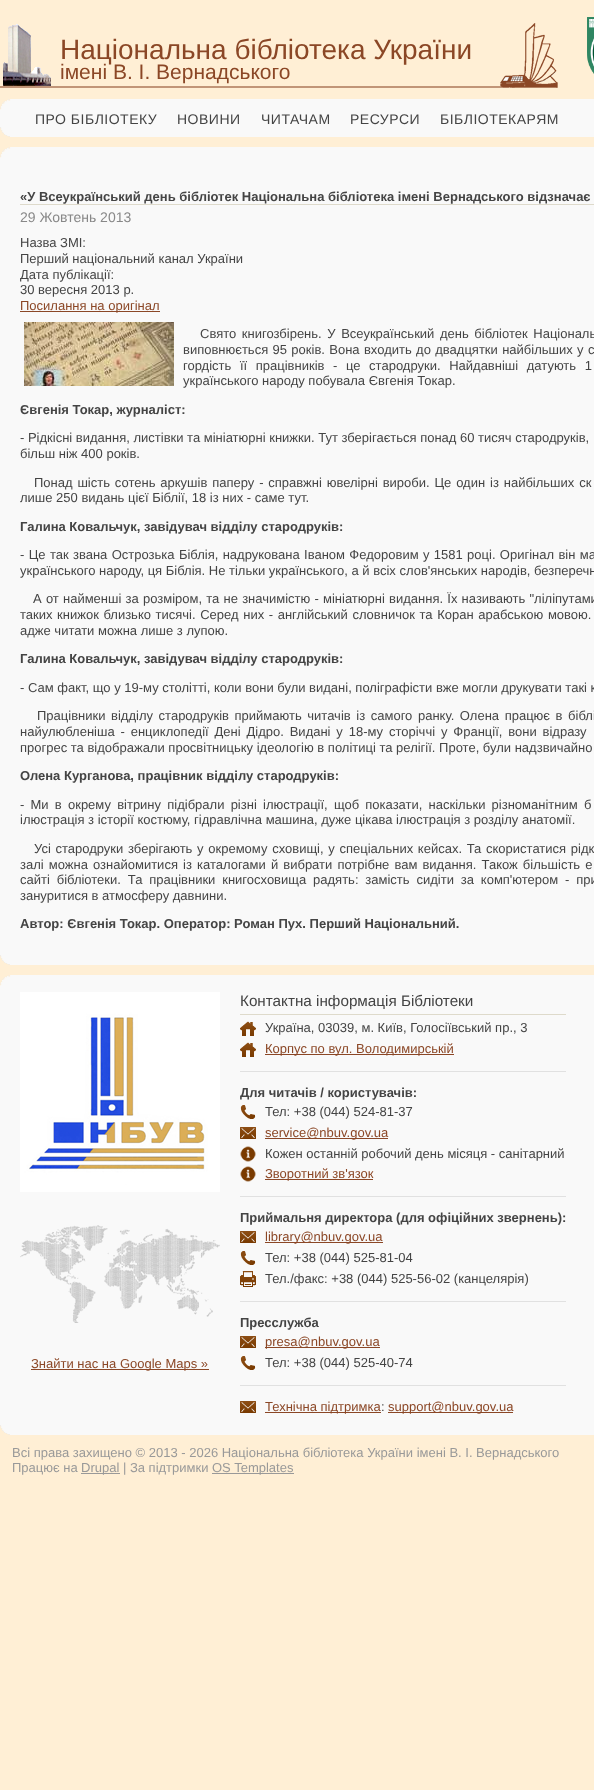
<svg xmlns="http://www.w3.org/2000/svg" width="594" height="1790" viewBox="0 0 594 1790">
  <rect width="100%" height="100%" fill="rgb(255,239,213)"/>
  <image x="0" y="23" width="558" height="65" href="pic1.png"/>
  <text x="60" y="59" font-family="Liberation Sans" font-size="28" fill="rgb(139,71,38)">Національна бібліотека України</text>
  <text x="60" y="79" font-family="Liberation Sans" font-size="21" fill="rgb(139,71,38)">імені В. І. Вернадського</text>
  <image x="587" y="17" width="7" height="57" href="pic2.png"/>
  <rect x="0" y="99" width="594" height="38" fill="rgb(249,249,249)"/>
  <image x="0" y="99" width="11" height="11" href="pic3.png"/>
  <image x="0" y="127" width="10" height="10" href="pic4.png"/>
  <g font-family="Liberation Sans" font-size="14" letter-spacing="0.5" fill="rgb(68,68,68)">
    <text x="35" y="124">ПРО БІБЛІОТЕКУ</text>
    <text x="177" y="124">НОВИНИ</text>
    <text x="261" y="124">ЧИТАЧАМ</text>
    <text x="350" y="124">РЕСУРСИ</text>
    <text x="440" y="124">БІБЛІОТЕКАРЯМ</text>
  </g>
  <rect x="0" y="147" width="594" height="818" fill="rgb(249,249,249)"/>
  <image x="0" y="147" width="11" height="11" href="pic3.png"/>
  <image x="0" y="955" width="10" height="10" href="pic4.png"/>
  <rect x="20" y="204" width="574" height="1" fill="rgb(222,218,203)"/>
  <text x="20" y="201" font-family="Liberation Sans" font-size="13" font-weight="bold" fill="rgb(68,68,68)">«У Всеукраїнський день бібліотек Національна бібліотека імені Вернадського відзначає</text>
  <text x="20" y="222" font-family="Liberation Sans" font-size="14" fill="rgb(136,136,136)">29 Жовтень 2013</text>
  <g font-family="Liberation Sans" font-size="13" fill="rgb(68,68,68)">
    <text>
      <tspan x="20" y="247">Назва ЗМІ:</tspan>
      <tspan x="20" y="263">Перший національний канал України</tspan>
      <tspan x="20" y="279">Дата публікації:</tspan>
      <tspan x="20" y="294">30 вересня 2013 р.</tspan>
    </text>
  </g>
  <rect x="20" y="311" width="140" height="1" fill="rgb(139,71,38)"/>
  <text x="20" y="310" font-family="Liberation Sans" font-size="13" fill="rgb(139,71,38)">Посилання на оригінал</text>
  <image x="24" y="322" width="150" height="64" href="pic5.png"/>
  <g font-family="Liberation Sans" font-size="13" fill="rgb(68,68,68)">
    <text x="200" y="338" word-spacing="2">Свято книгозбірень. У Всеукраїнський день бібліотек Національ</text>
    <text>
      <tspan x="183" y="354" word-spacing="0.75">виповнюється 95 років. Вона входить до двадцятки найбільших у с</tspan>
      <tspan x="183" y="370" word-spacing="5">гордість її працівників - це стародруки. Найдавніші датують 1</tspan>
      <tspan x="183" y="385">українського народу побувала Євгенія Токар.</tspan>
    </text>
  </g>
  <text x="20" y="414" font-family="Liberation Sans" font-size="13" font-weight="bold" fill="rgb(68,68,68)">Євгенія Токар, журналіст:</text>
  <g font-family="Liberation Sans" font-size="13" fill="rgb(68,68,68)">
    <text>
      <tspan x="20" y="442">- Рідкісні видання, листівки та мініатюрні книжки. Тут зберігається понад 60 тисяч стародруків,</tspan>
      <tspan x="20" y="458">більш ніж 400 років.</tspan>
    </text>
    <text x="34" y="487" word-spacing="1.25">Понад шість сотень аркушів паперу - справжні ювелірні вироби. Це один із найбільших ск</text>
    <text x="20" y="502">лише 250 видань цієї Біблії, 18 із них - саме тут.</text>
  </g>
  <text x="20" y="531" font-family="Liberation Sans" font-size="13" font-weight="bold" fill="rgb(68,68,68)">Галина Ковальчук, завідувач відділу стародруків:</text>
  <g font-family="Liberation Sans" font-size="13" fill="rgb(68,68,68)">
    <text>
      <tspan x="20" y="559" word-spacing="0.75">- Це так звана Острозька Біблія, надрукована Іваном Федоровим у 1581 році. Оригінал він ма</tspan>
      <tspan x="20" y="575">українського народу, ця Біблія. Не тільки українського, а й всіх слов'янських народів, безперечн</tspan>
    </text>
    <text x="33" y="603" word-spacing="0.6">А от найменші за розміром, та не значимістю - мініатюрні видання. Їх називають "ліліпутами</text>
    <text>
      <tspan x="20" y="619" word-spacing="1">таких книжок близько тисячі. Серед них - англійський словничок та Коран арабською мовою.</tspan>
      <tspan x="20" y="635">адже читати можна лише з лупою.</tspan>
    </text>
  </g>
  <text x="20" y="663" font-family="Liberation Sans" font-size="13" font-weight="bold" fill="rgb(68,68,68)">Галина Ковальчук, завідувач відділу стародруків:</text>
  <g font-family="Liberation Sans" font-size="13" fill="rgb(68,68,68)">
    <text x="20" y="692">- Сам факт, що у 19-му столітті, коли вони були видані, поліграфісти вже могли друкувати такі к</text>
    <text x="37" y="720" word-spacing="2">Працівники відділу стародруків приймають читачів із самого ранку. Олена працює в біблі</text>
    <text>
      <tspan x="20" y="736" word-spacing="2.25">найулюбленіша - енциклопедії Дені Дідро. Видані у 18-му сторіччі у Франції, вони відразу</tspan>
      <tspan x="20" y="752">прогрес та відображали просвітницьку ідеологію в політиці та релігії. Проте, були надзвичайно</tspan>
    </text>
  </g>
  <text x="20" y="780" font-family="Liberation Sans" font-size="13" font-weight="bold" fill="rgb(68,68,68)">Олена Курганова, працівник відділу стародруків:</text>
  <g font-family="Liberation Sans" font-size="13" fill="rgb(68,68,68)">
    <text>
      <tspan x="20" y="809" word-spacing="2.6">- Ми в окрему вітрину підібрали різні ілюстрації, щоб показати, наскільки різноманітним б</tspan>
      <tspan x="20" y="824">ілюстрація з історії костюму, гідравлічна машина, дуже цікава ілюстрація з розділу анатомії.</tspan>
    </text>
    <text x="34" y="853" word-spacing="1.1">Усі стародруки зберігають у окремому сховищі, у спеціальних кейсах. Та скористатися рідк</text>
    <text>
      <tspan x="20" y="869" word-spacing="1.5">залі можна ознайомитися із каталогами й вибрати потрібне вам видання. Також більшість е</tspan>
      <tspan x="20" y="884" word-spacing="3.25">сайті бібліотеки. Та працівники книгосховища радять: замість сидіти за комп'ютером - при</tspan>
      <tspan x="20" y="900">зануритися в атмосферу давнини.</tspan>
    </text>
  </g>
  <text x="20" y="928" font-family="Liberation Sans" font-size="13" font-weight="bold" fill="rgb(68,68,68)">Автор: Євгенія Токар. Оператор: Роман Пух. Перший Національний.</text>
  <rect x="0" y="975" width="594" height="460" fill="rgb(249,249,249)"/>
  <image x="0" y="975" width="11" height="11" href="pic3.png"/>
  <image x="0" y="1425" width="10" height="10" href="pic4.png"/>
  <image x="20" y="992" width="200" height="200" href="pic6.png"/>
  <image x="20" y="1225" width="200" height="98" href="pic7.png"/>
  <rect x="31" y="1369" width="178" height="1" fill="rgb(139,71,38)"/>
  <text x="31" y="1368" font-family="Liberation Sans" font-size="13" fill="rgb(139,71,38)">Знайти нас на Google Maps »</text>
  <rect x="240" y="1014" width="326" height="1" fill="rgb(222,218,203)"/>
  <text x="240" y="1006" font-family="Liberation Sans" font-size="15.25" fill="rgb(68,68,68)">Контактна інформація Бібліотеки</text>
  <image x="240" y="1021" width="16" height="15" href="pic8.png"/>
  <text x="265" y="1032" font-family="Liberation Sans" font-size="13" fill="rgb(68,68,68)">Україна, 03039, м. Київ, Голосіївський пр., 3</text>
  <image x="240" y="1042" width="16" height="15" href="pic8.png"/>
  <rect x="265" y="1054" width="189" height="1" fill="rgb(139,71,38)"/>
  <text x="265" y="1053" font-family="Liberation Sans" font-size="13" fill="rgb(139,71,38)">Корпус по вул. Володимирській</text>
  <rect x="240" y="1071" width="326" height="1" fill="rgb(225,225,225)"/>
  <text x="240" y="1097" font-family="Liberation Sans" font-size="13" font-weight="bold" fill="rgb(68,68,68)">Для читачів / користувачів:</text>
  <image x="240" y="1105" width="16" height="14" href="pic9.png"/>
  <text x="265" y="1116" font-family="Liberation Sans" font-size="13" fill="rgb(68,68,68)">Тел: +38 (044) 524-81-37</text>
  <image x="240" y="1127" width="16" height="12" href="pic10.png"/>
  <rect x="265" y="1138" width="123" height="1" fill="rgb(139,71,38)"/>
  <text x="265" y="1137" font-family="Liberation Sans" font-size="13" fill="rgb(139,71,38)">service@nbuv.gov.ua</text>
  <image x="240" y="1146" width="16" height="16" href="pic11.png"/>
  <text x="265" y="1158" font-family="Liberation Sans" font-size="13" fill="rgb(68,68,68)">Кожен останній робочий день місяця - санітарний</text>
  <image x="240" y="1166" width="16" height="16" href="pic11.png"/>
  <rect x="265" y="1179" width="108" height="1" fill="rgb(139,71,38)"/>
  <text x="265" y="1178" font-family="Liberation Sans" font-size="13" fill="rgb(139,71,38)">Зворотний зв'язок</text>
  <rect x="240" y="1196" width="326" height="1" fill="rgb(225,225,225)"/>
  <text x="240" y="1222" font-family="Liberation Sans" font-size="13" font-weight="bold" fill="rgb(68,68,68)">Приймальня директора (для офіційних звернень):</text>
  <image x="240" y="1231" width="16" height="12" href="pic10.png"/>
  <rect x="265" y="1242" width="118" height="1" fill="rgb(139,71,38)"/>
  <text x="265" y="1241" font-family="Liberation Sans" font-size="13" fill="rgb(139,71,38)">library@nbuv.gov.ua</text>
  <image x="240" y="1251" width="16" height="14" href="pic9.png"/>
  <text x="265" y="1262" font-family="Liberation Sans" font-size="13" fill="rgb(68,68,68)">Тел: +38 (044) 525-81-04</text>
  <image x="240" y="1271" width="16" height="16" href="pic12.png"/>
  <text x="265" y="1283" font-family="Liberation Sans" font-size="13" fill="rgb(68,68,68)">Тел./факс: +38 (044) 525-56-02 (канцелярія)</text>
  <rect x="240" y="1301" width="326" height="1" fill="rgb(225,225,225)"/>
  <text x="240" y="1327" font-family="Liberation Sans" font-size="13" font-weight="bold" fill="rgb(68,68,68)">Пресслужба</text>
  <image x="240" y="1336" width="16" height="12" href="pic10.png"/>
  <rect x="265" y="1347" width="115" height="1" fill="rgb(139,71,38)"/>
  <text x="265" y="1346" font-family="Liberation Sans" font-size="13" fill="rgb(139,71,38)">presa@nbuv.gov.ua</text>
  <image x="240" y="1356" width="16" height="14" href="pic9.png"/>
  <text x="265" y="1367" font-family="Liberation Sans" font-size="13" fill="rgb(68,68,68)">Тел: +38 (044) 525-40-74</text>
  <rect x="240" y="1385" width="326" height="1" fill="rgb(225,225,225)"/>
  <image x="240" y="1401" width="16" height="12" href="pic10.png"/>
  <rect x="265" y="1412" width="116" height="1" fill="rgb(139,71,38)"/>
  <text x="265" y="1411" font-family="Liberation Sans" font-size="13" fill="rgb(139,71,38)">Технічна підтримка</text>
  <text x="381" y="1411" font-family="Liberation Sans" font-size="13" fill="rgb(68,68,68)">:</text>
  <rect x="388" y="1412" width="125" height="1" fill="rgb(139,71,38)"/>
  <text x="388" y="1411" font-family="Liberation Sans" font-size="13" fill="rgb(139,71,38)">support@nbuv.gov.ua</text>
  <g font-family="Liberation Sans" font-size="13" fill="rgb(153,153,153)">
    <text>
      <tspan x="12" y="1457">Всі права захищено © 2013 - 2026 Національна бібліотека України імені В. І. Вернадського</tspan>
      <tspan x="12" y="1472">Працює на</tspan>
    </text>
  </g>
  <rect x="81" y="1473" width="39" height="1" fill="rgb(153,153,153)"/>
  <text x="81" y="1472" font-family="Liberation Sans" font-size="13" fill="rgb(153,153,153)">Drupal | За підтримки</text>
  <rect x="212" y="1473" width="82" height="1" fill="rgb(153,153,153)"/>
  <text x="212" y="1472" font-family="Liberation Sans" font-size="13" fill="rgb(153,153,153)">OS Templates</text>
</svg>
